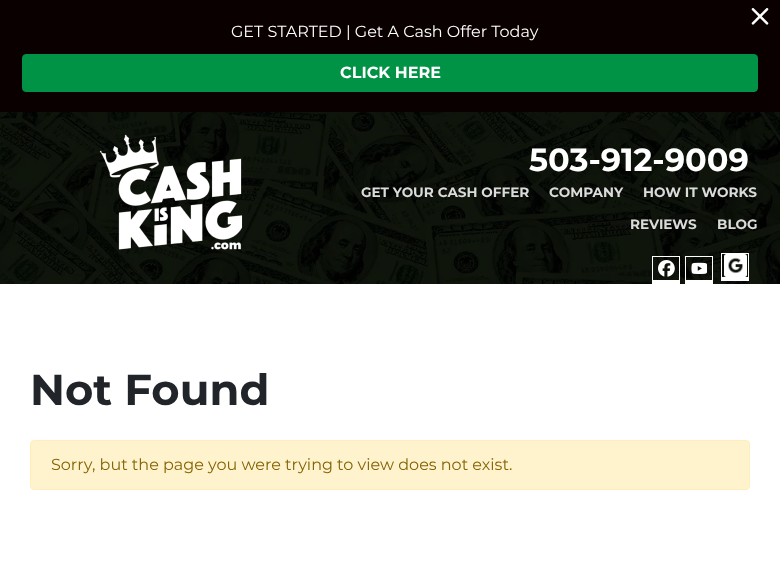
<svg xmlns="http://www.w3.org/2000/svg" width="780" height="582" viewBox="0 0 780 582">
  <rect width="100%" height="100%" fill="rgb(255,255,255)"/>
  <rect x="0" y="0" width="780" height="112" fill="rgb(10,0,0)"/>
  <image x="751" y="8" width="18" height="17" href="pic1.png"/>
  <text x="231" y="37" font-family="Montserrat" font-size="16" fill="rgb(255,255,255)">GET STARTED | Get A Cash Offer Today</text>
  <rect x="22.5" y="54.5" width="735" height="37" rx="3.5" fill="rgb(0,147,69)" stroke="rgb(0,147,69)"/>
  <text x="340" y="78" font-family="Montserrat" font-size="16" font-weight="bold" fill="rgb(255,255,255)">CLICK HERE</text>
  <image x="0" y="112" width="780" height="172" href="pic2.png"/>
  <image x="99" y="134" width="144" height="116" href="pic3.png"/>
  <text x="529" y="171" font-family="Montserrat" font-size="32" font-weight="bold" fill="rgb(255,255,255)">503-912-9009</text>
  <g font-family="Montserrat" font-size="13.6" font-weight="bold" fill="rgb(218,219,218)">
    <text x="361" y="197">GET YOUR CASH OFFER</text>
    <text x="549" y="197">COMPANY</text>
    <text x="643" y="197">HOW IT WORKS</text>
    <text x="630" y="229">REVIEWS</text>
    <text x="717" y="229">BLOG</text>
  </g>
  <rect x="652" y="256" width="28" height="1" fill="rgb(255,255,255)"/>
  <rect x="679" y="256" width="1" height="28" fill="rgb(255,255,255)"/>
  <rect x="652" y="280" width="28" height="4" fill="rgb(255,255,255)"/>
  <rect x="652" y="256" width="1" height="28" fill="rgb(255,255,255)"/>
  <image x="658" y="260" width="17" height="17" href="pic4.png"/>
  <rect x="685" y="256" width="28" height="1" fill="rgb(255,255,255)"/>
  <rect x="712" y="256" width="1" height="28" fill="rgb(255,255,255)"/>
  <rect x="685" y="280" width="28" height="4" fill="rgb(255,255,255)"/>
  <rect x="685" y="256" width="1" height="28" fill="rgb(255,255,255)"/>
  <image x="691" y="262" width="16" height="12" href="pic5.png"/>
  <rect x="721" y="253" width="28" height="1" fill="rgb(255,255,255)"/>
  <rect x="748" y="253" width="1" height="28" fill="rgb(255,255,255)"/>
  <rect x="721" y="277" width="28" height="4" fill="rgb(255,255,255)"/>
  <rect x="721" y="253" width="1" height="28" fill="rgb(255,255,255)"/>
  <image x="724" y="254" width="23" height="23" href="pic6.png"/>
  <text x="30" y="405" font-family="Montserrat" font-size="43.25" font-weight="bold" fill="rgb(33,37,41)">Not Found</text>
  <rect x="30.5" y="440.5" width="719" height="49" rx="3.5" fill="rgb(255,243,205)" stroke="rgb(255,238,186)"/>
  <text x="51" y="470" font-family="Montserrat" font-size="16" fill="rgb(133,100,4)">Sorry, but the page you were trying to view does not exist.</text>
</svg>
